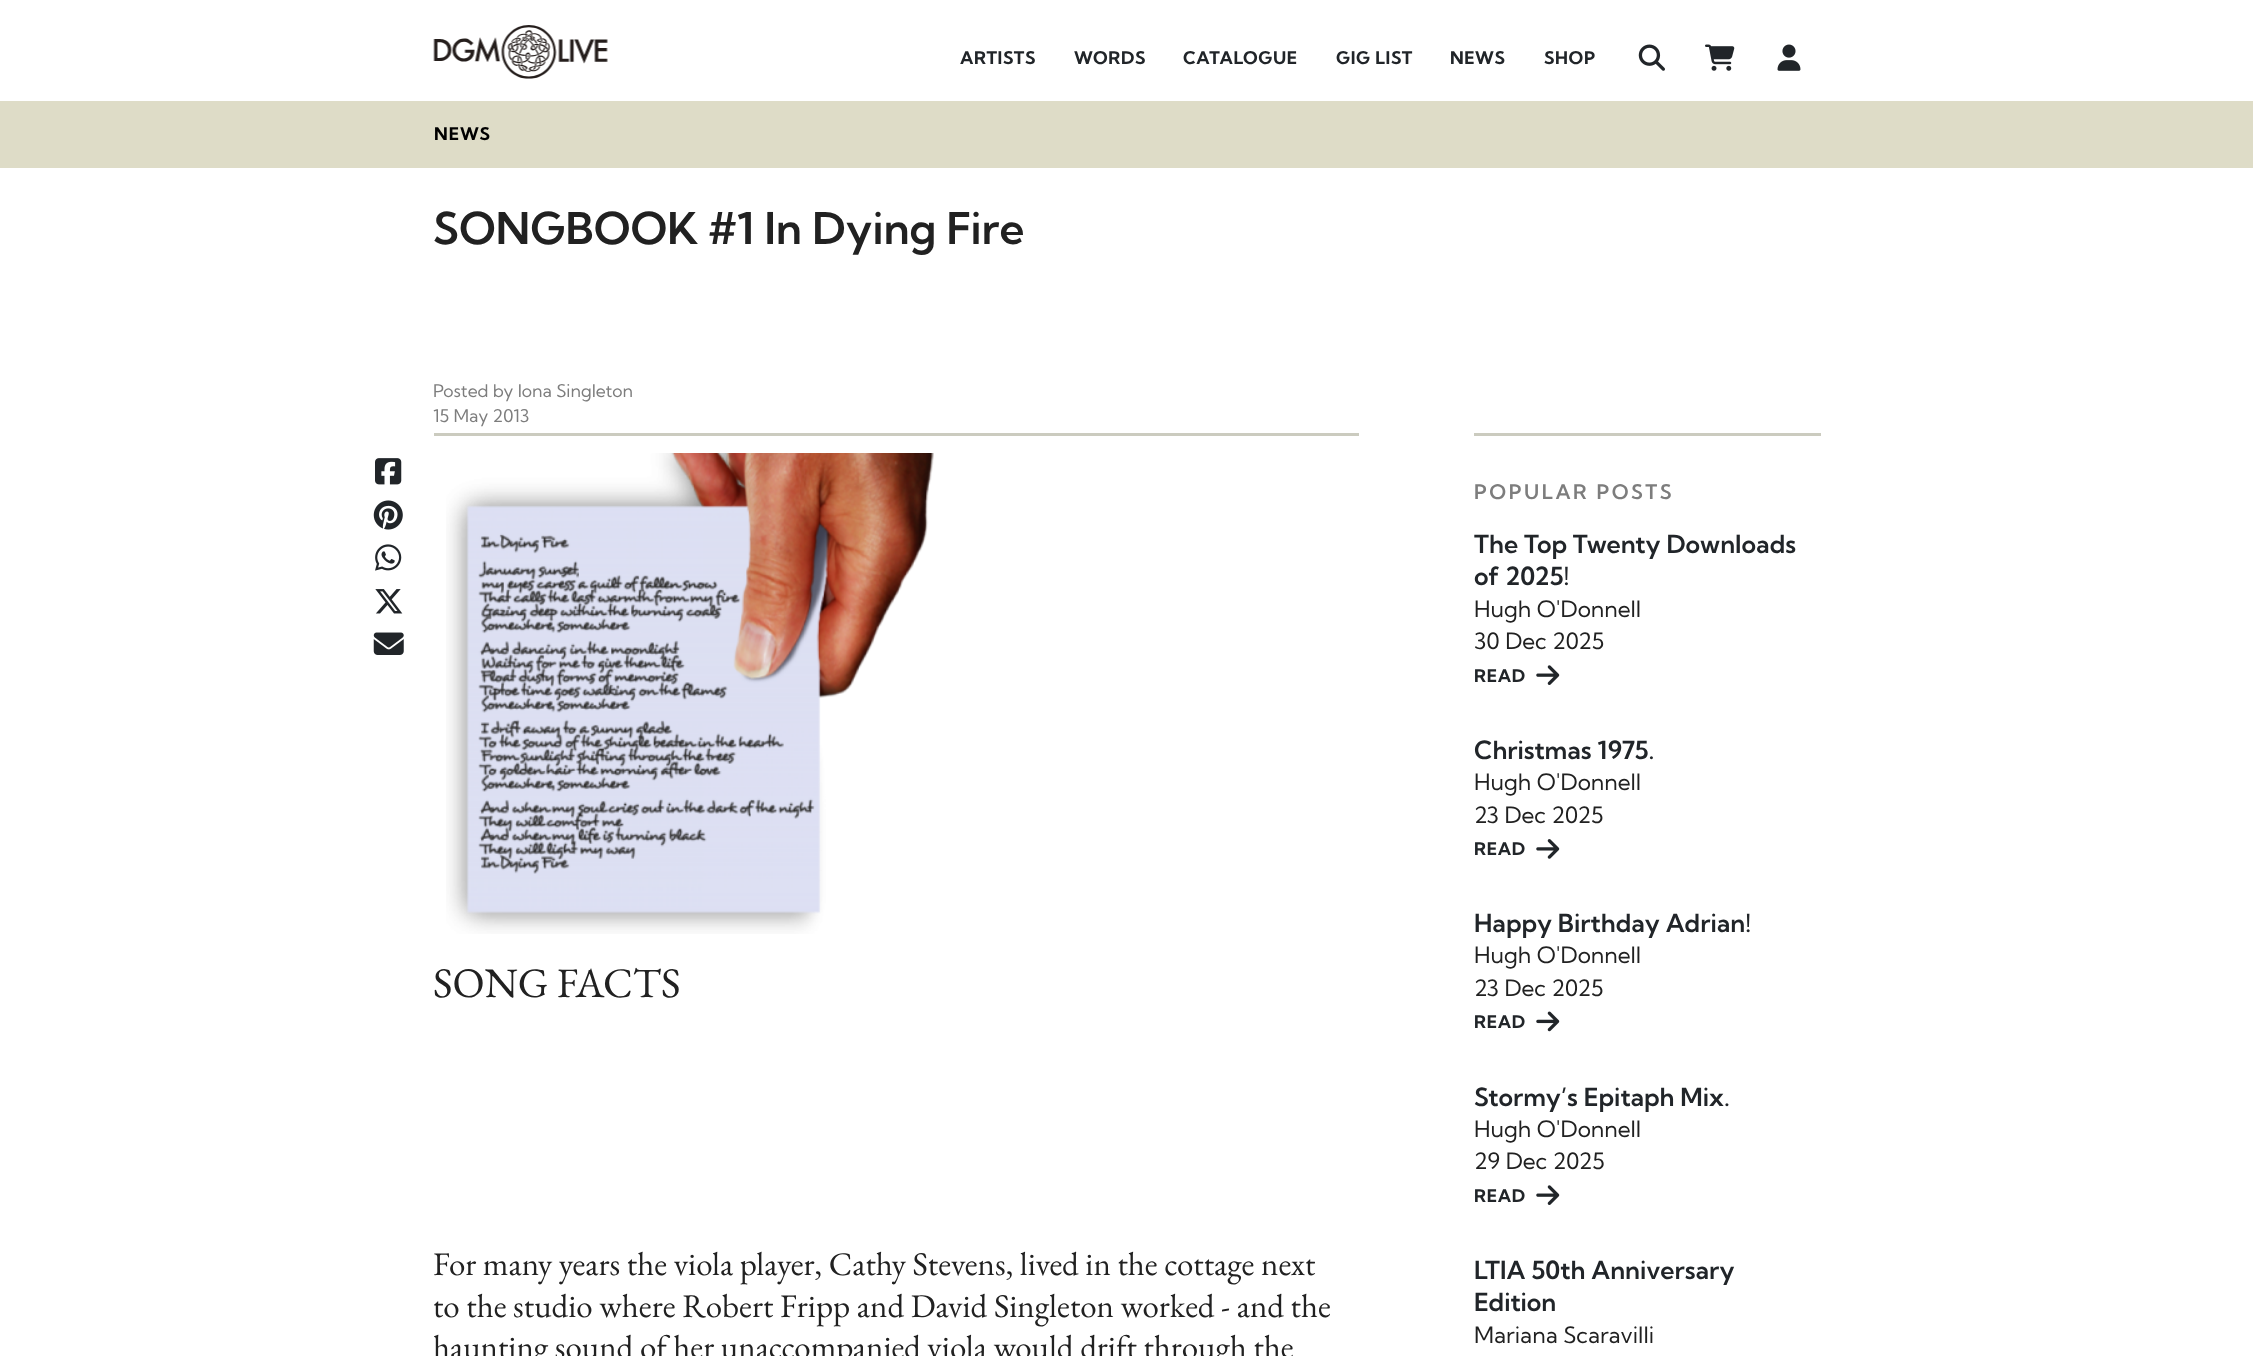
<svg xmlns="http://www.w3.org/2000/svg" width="2253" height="1356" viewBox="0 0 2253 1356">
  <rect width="100%" height="100%" fill="rgb(255,255,255)"/>
  <image x="433" y="25" width="175" height="54" href="pic1.png"/>
  <g font-family="Kumbh Sans" font-size="17.5" font-weight="bold" letter-spacing="0.6" fill="rgb(33,37,41)">
    <text x="960" y="64">ARTISTS</text>
    <text x="1074" y="64">WORDS</text>
    <text x="1183" y="64">CATALOGUE</text>
    <text x="1336" y="64">GIG LIST</text>
    <text x="1450" y="64">NEWS</text>
    <text x="1544" y="64">SHOP</text>
  </g>
  <image x="1638" y="44" width="27" height="27" href="pic2.png"/>
  <image x="1705" y="44" width="30" height="27" href="pic3.png"/>
  <image x="1777" y="44" width="24" height="27" href="pic4.png"/>
  <rect x="0" y="101" width="2253" height="67" fill="rgb(222,220,199)"/>
  <text x="434" y="140" font-family="Kumbh Sans" font-size="17.5" font-weight="bold" letter-spacing="1" fill="rgb(0,0,0)">NEWS</text>
  <text x="433" y="244" font-family="Kumbh Sans" font-size="43.75" font-weight="600" fill="rgb(33,33,33)">SONGBOOK #1 In Dying Fire</text>
  <g font-family="Kumbh Sans" font-size="17.5" fill="rgb(125,125,125)">
    <text>
      <tspan x="433" y="397">Posted by Iona Singleton</tspan>
      <tspan x="433" y="422">15 May 2013</tspan>
    </text>
  </g>
  <rect x="434" y="433" width="925" height="3" fill="rgb(203,203,191)"/>
  <image x="375" y="458" width="27" height="27" href="pic5.png"/>
  <image x="373" y="500" width="30" height="30" href="pic6.png"/>
  <image x="375" y="544" width="27" height="27" href="pic7.png"/>
  <image x="375" y="589" width="28" height="25" href="pic8.png"/>
  <image x="373" y="632" width="31" height="23" href="pic9.png"/>
  <image x="446" y="453" width="488" height="481" href="pic10.png"/>
  <text x="433" y="997" font-family="EB Garamond" font-size="42" fill="rgb(33,33,33)">SONG FACTS</text>
  <g font-family="EB Garamond" font-size="33" fill="rgb(33,33,33)">
    <text>
      <tspan x="433" y="1275">For many years the viola player, Cathy Stevens, lived in the cottage next</tspan>
      <tspan x="433" y="1317">to the studio where Robert Fripp and David Singleton worked - and the</tspan>
      <tspan x="433" y="1358">haunting sound of her unaccompanied viola would drift through the</tspan>
    </text>
  </g>
  <rect x="1474" y="433" width="347" height="3" fill="rgb(203,203,191)"/>
  <text x="1474" y="499" font-family="Kumbh Sans" font-size="20" font-weight="600" letter-spacing="2.5" fill="rgb(125,125,125)">POPULAR POSTS</text>
  <g font-family="Kumbh Sans" font-size="25" font-weight="600" fill="rgb(33,37,41)">
    <text>
      <tspan x="1474" y="553">The Top Twenty Downloads</tspan>
      <tspan x="1474" y="585">of 2025!</tspan>
    </text>
  </g>
  <g font-family="Kumbh Sans" font-size="22.5" fill="rgb(33,33,33)">
    <text>
      <tspan x="1474" y="617">Hugh O'Donnell</tspan>
      <tspan x="1474" y="649">30 Dec 2025</tspan>
    </text>
  </g>
  <text x="1474" y="682" font-family="Kumbh Sans" font-size="17.5" font-weight="bold" letter-spacing="0.6" fill="rgb(33,37,41)">READ</text>
  <image x="1536" y="665" width="24" height="20" href="pic11.png"/>
  <text x="1474" y="759" font-family="Kumbh Sans" font-size="25" font-weight="600" fill="rgb(33,37,41)">Christmas 1975.</text>
  <g font-family="Kumbh Sans" font-size="22.5" fill="rgb(33,33,33)">
    <text>
      <tspan x="1474" y="790">Hugh O'Donnell</tspan>
      <tspan x="1474" y="823">23 Dec 2025</tspan>
    </text>
  </g>
  <text x="1474" y="855" font-family="Kumbh Sans" font-size="17.5" font-weight="bold" letter-spacing="0.6" fill="rgb(33,37,41)">READ</text>
  <image x="1536" y="839" width="24" height="20" href="pic12.png"/>
  <text x="1474" y="932" font-family="Kumbh Sans" font-size="25" font-weight="600" fill="rgb(33,37,41)">Happy Birthday Adrian!</text>
  <g font-family="Kumbh Sans" font-size="22.5" fill="rgb(33,33,33)">
    <text>
      <tspan x="1474" y="963">Hugh O'Donnell</tspan>
      <tspan x="1474" y="996">23 Dec 2025</tspan>
    </text>
  </g>
  <text x="1474" y="1028" font-family="Kumbh Sans" font-size="17.5" font-weight="bold" letter-spacing="0.6" fill="rgb(33,37,41)">READ</text>
  <image x="1536" y="1011" width="24" height="21" href="pic13.png"/>
  <text x="1474" y="1106" font-family="Kumbh Sans" font-size="25" font-weight="600" fill="rgb(33,37,41)">Stormy’s Epitaph Mix.</text>
  <g font-family="Kumbh Sans" font-size="22.5" fill="rgb(33,33,33)">
    <text>
      <tspan x="1474" y="1137">Hugh O'Donnell</tspan>
      <tspan x="1474" y="1169">29 Dec 2025</tspan>
    </text>
  </g>
  <text x="1474" y="1202" font-family="Kumbh Sans" font-size="17.5" font-weight="bold" letter-spacing="0.6" fill="rgb(33,37,41)">READ</text>
  <image x="1536" y="1185" width="24" height="20" href="pic11.png"/>
  <g font-family="Kumbh Sans" font-size="25" font-weight="600" fill="rgb(33,37,41)">
    <text>
      <tspan x="1474" y="1279">LTIA 50th Anniversary</tspan>
      <tspan x="1474" y="1311">Edition</tspan>
    </text>
  </g>
  <text x="1474" y="1343" font-family="Kumbh Sans" font-size="22.5" fill="rgb(33,33,33)">Mariana Scaravilli</text>
</svg>
